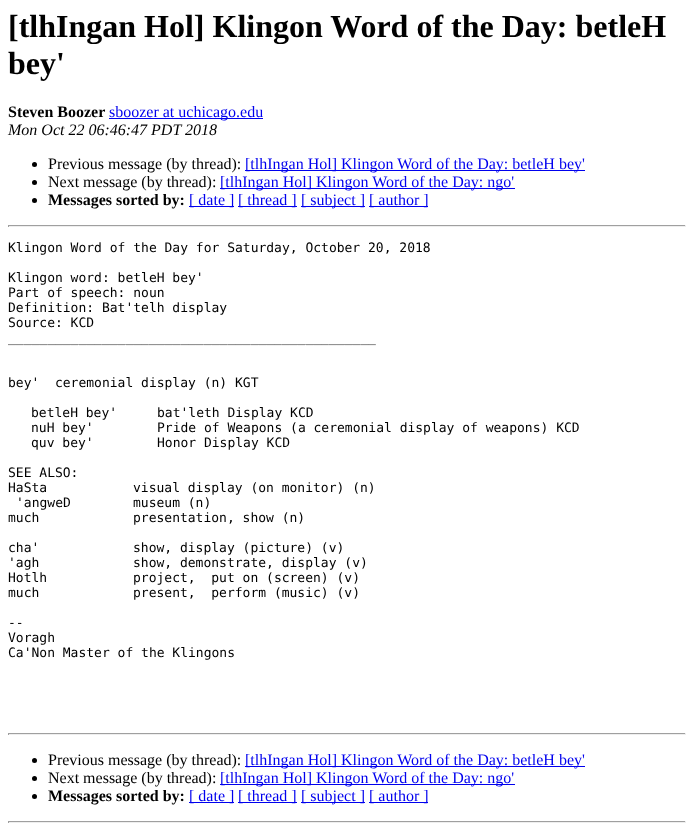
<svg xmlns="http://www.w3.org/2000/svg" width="694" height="832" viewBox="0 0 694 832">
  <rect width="100%" height="100%" fill="rgb(255,255,255)"/>
  <g font-family="Liberation Serif" font-size="32" font-weight="bold" fill="rgb(0,0,0)">
    <text>
      <tspan x="8" y="37">[tlhIngan Hol] Klingon Word of the Day: betleH</tspan>
      <tspan x="8" y="74">bey'</tspan>
    </text>
  </g>
  <text x="8" y="117" font-family="Liberation Serif" font-size="16" font-weight="bold" fill="rgb(0,0,0)">Steven Boozer</text>
  <rect x="109" y="118" width="154" height="1" fill="rgb(0,0,238)"/>
  <text x="109" y="117" font-family="Liberation Serif" font-size="16" fill="rgb(0,0,238)">sboozer at uchicago.edu</text>
  <text x="8" y="135" font-family="Liberation Serif" font-size="16" font-style="italic" fill="rgb(0,0,0)">Mon Oct 22 06:46:47 PDT 2018</text>
  <circle cx="34.5" cy="164.5" r="2.5" fill="rgb(0,0,0)"/>
  <text x="48" y="169" font-family="Liberation Serif" font-size="16" fill="rgb(0,0,0)">Previous message (by thread):</text>
  <rect x="245" y="170" width="340" height="1" fill="rgb(0,0,238)"/>
  <text x="245" y="169" font-family="Liberation Serif" font-size="16" fill="rgb(0,0,238)">[tlhIngan Hol] Klingon Word of the Day: betleH bey'</text>
  <circle cx="34.5" cy="182.5" r="2.5" fill="rgb(0,0,0)"/>
  <text x="48" y="187" font-family="Liberation Serif" font-size="16" fill="rgb(0,0,0)">Next message (by thread):</text>
  <rect x="220" y="188" width="295" height="1" fill="rgb(0,0,238)"/>
  <text x="220" y="187" font-family="Liberation Serif" font-size="16" fill="rgb(0,0,238)">[tlhIngan Hol] Klingon Word of the Day: ngo'</text>
  <circle cx="34.5" cy="200.5" r="2.5" fill="rgb(0,0,0)"/>
  <text x="48" y="205" font-family="Liberation Serif" font-size="16" font-weight="bold" fill="rgb(0,0,0)">Messages sorted by:</text>
  <rect x="189" y="206" width="45" height="1" fill="rgb(0,0,238)"/>
  <text x="189" y="205" font-family="Liberation Serif" font-size="16" fill="rgb(0,0,238)">[ date ]</text>
  <rect x="238" y="206" width="59" height="1" fill="rgb(0,0,238)"/>
  <text x="238" y="205" font-family="Liberation Serif" font-size="16" fill="rgb(0,0,238)">[ thread ]</text>
  <rect x="301" y="206" width="64" height="1" fill="rgb(0,0,238)"/>
  <text x="301" y="205" font-family="Liberation Serif" font-size="16" fill="rgb(0,0,238)">[ subject ]</text>
  <rect x="369" y="206" width="59" height="1" fill="rgb(0,0,238)"/>
  <text x="369" y="205" font-family="Liberation Serif" font-size="16" fill="rgb(0,0,238)">[ author ]</text>
  <rect x="8" y="225" width="678" height="1" fill="rgb(159,159,159)"/>
  <rect x="685" y="225" width="1" height="2" fill="rgb(238,238,238)"/>
  <rect x="8" y="226" width="678" height="1" fill="rgb(238,238,238)"/>
  <rect x="8" y="225" width="1" height="2" fill="rgb(159,159,159)"/>
  <g font-family="DejaVu Sans Mono" font-size="13" fill="rgb(0,0,0)">
    <text x="8" y="252">Klingon Word of the Day for Saturday, October 20, 2018</text>
    <text>
      <tspan x="8" y="282">Klingon word: betleH bey'</tspan>
      <tspan x="8" y="297">Part of speech: noun</tspan>
      <tspan x="8" y="312">Definition: Bat'telh display</tspan>
      <tspan x="8" y="327">Source: KCD</tspan>
      <tspan x="8" y="342">_______________________________________________</tspan>
    </text>
    <text x="8" y="387" xml:space="preserve">bey'  ceremonial display (n) KGT</text>
    <text x="31" y="417">betleH bey'</text>
    <text x="157" y="417">bat'leth Display KCD</text>
    <text x="31" y="432">nuH bey'</text>
    <text x="157" y="432">Pride of Weapons (a ceremonial display of weapons) KCD</text>
    <text x="31" y="447">quv bey'</text>
    <text x="157" y="447">Honor Display KCD</text>
    <text>
      <tspan x="8" y="477">SEE ALSO:</tspan>
      <tspan x="8" y="492">HaSta</tspan>
    </text>
    <text x="133" y="492">visual display (on monitor) (n)</text>
    <text x="16" y="507">'angweD</text>
    <text x="133" y="507">museum (n)</text>
    <text x="8" y="522">much</text>
    <text x="133" y="522">presentation, show (n)</text>
    <text x="8" y="552">cha'</text>
    <text x="133" y="552">show, display (picture) (v)</text>
    <text x="8" y="567">'agh</text>
    <text x="133" y="567">show, demonstrate, display (v)</text>
    <text x="8" y="582">Hotlh</text>
    <text x="133" y="582" xml:space="preserve">project,  put on (screen) (v)</text>
    <text x="8" y="597">much</text>
    <text x="133" y="597" xml:space="preserve">present,  perform (music) (v)</text>
    <text>
      <tspan x="8" y="627">--</tspan>
      <tspan x="8" y="642">Voragh</tspan>
      <tspan x="8" y="657">Ca'Non Master of the Klingons</tspan>
    </text>
  </g>
  <rect x="8" y="733" width="678" height="1" fill="rgb(159,159,159)"/>
  <rect x="685" y="733" width="1" height="2" fill="rgb(238,238,238)"/>
  <rect x="8" y="734" width="678" height="1" fill="rgb(238,238,238)"/>
  <rect x="8" y="733" width="1" height="2" fill="rgb(159,159,159)"/>
  <circle cx="34.5" cy="760.5" r="2.5" fill="rgb(0,0,0)"/>
  <text x="48" y="765" font-family="Liberation Serif" font-size="16" fill="rgb(0,0,0)">Previous message (by thread):</text>
  <rect x="245" y="766" width="340" height="1" fill="rgb(0,0,238)"/>
  <text x="245" y="765" font-family="Liberation Serif" font-size="16" fill="rgb(0,0,238)">[tlhIngan Hol] Klingon Word of the Day: betleH bey'</text>
  <circle cx="34.5" cy="778.5" r="2.5" fill="rgb(0,0,0)"/>
  <text x="48" y="783" font-family="Liberation Serif" font-size="16" fill="rgb(0,0,0)">Next message (by thread):</text>
  <rect x="220" y="784" width="295" height="1" fill="rgb(0,0,238)"/>
  <text x="220" y="783" font-family="Liberation Serif" font-size="16" fill="rgb(0,0,238)">[tlhIngan Hol] Klingon Word of the Day: ngo'</text>
  <circle cx="34.5" cy="796.5" r="2.5" fill="rgb(0,0,0)"/>
  <text x="48" y="801" font-family="Liberation Serif" font-size="16" font-weight="bold" fill="rgb(0,0,0)">Messages sorted by:</text>
  <rect x="189" y="802" width="45" height="1" fill="rgb(0,0,238)"/>
  <text x="189" y="801" font-family="Liberation Serif" font-size="16" fill="rgb(0,0,238)">[ date ]</text>
  <rect x="238" y="802" width="59" height="1" fill="rgb(0,0,238)"/>
  <text x="238" y="801" font-family="Liberation Serif" font-size="16" fill="rgb(0,0,238)">[ thread ]</text>
  <rect x="301" y="802" width="64" height="1" fill="rgb(0,0,238)"/>
  <text x="301" y="801" font-family="Liberation Serif" font-size="16" fill="rgb(0,0,238)">[ subject ]</text>
  <rect x="369" y="802" width="59" height="1" fill="rgb(0,0,238)"/>
  <text x="369" y="801" font-family="Liberation Serif" font-size="16" fill="rgb(0,0,238)">[ author ]</text>
  <rect x="8" y="821" width="678" height="1" fill="rgb(159,159,159)"/>
  <rect x="685" y="821" width="1" height="2" fill="rgb(238,238,238)"/>
  <rect x="8" y="822" width="678" height="1" fill="rgb(238,238,238)"/>
  <rect x="8" y="821" width="1" height="2" fill="rgb(159,159,159)"/>
</svg>
